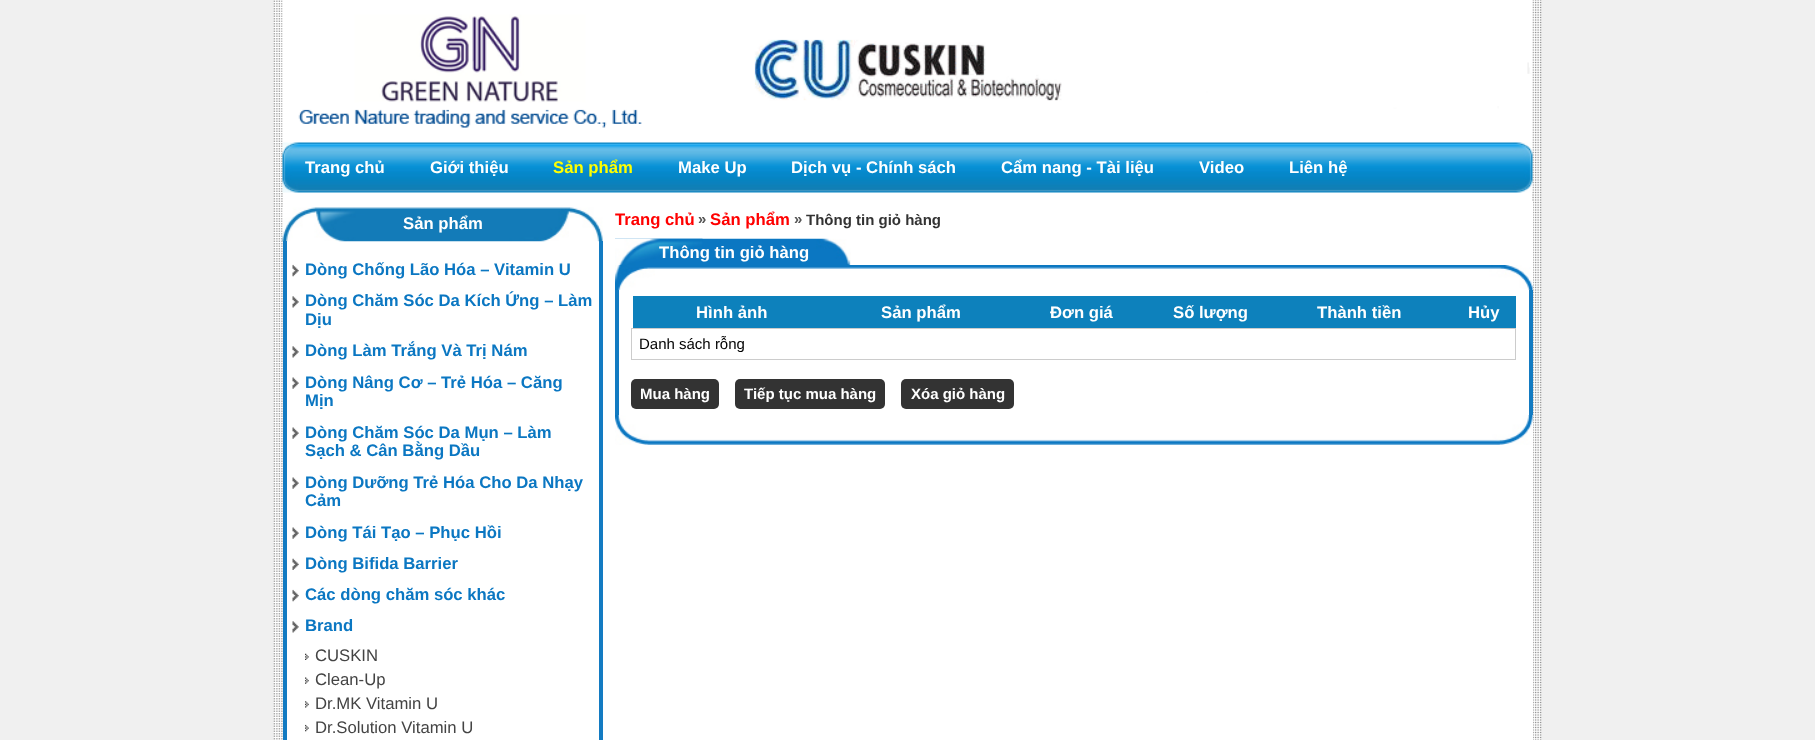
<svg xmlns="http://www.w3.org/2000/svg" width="1815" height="740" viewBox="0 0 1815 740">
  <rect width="100%" height="100%" fill="rgb(240,240,240)"/>
  <image x="273" y="0" width="1269" height="740" href="pic1.png"/>
  <image x="282" y="0" width="1251" height="143" href="pic2.png"/>
  <image x="282" y="142" width="1251" height="51" href="pic3.png"/>
  <g font-family="Liberation Sans" font-size="16.7" font-weight="bold" fill="rgb(255,255,255)">
    <text x="305" y="173">Trang chủ</text>
    <text x="430" y="173">Giới thiệu</text>
  </g>
  <text x="553" y="173" font-family="Liberation Sans" font-size="16.7" font-weight="bold" fill="rgb(255,255,0)">Sản phẩm</text>
  <g font-family="Liberation Sans" font-size="16.7" font-weight="bold" fill="rgb(255,255,255)">
    <text x="678" y="173">Make Up</text>
    <text x="791" y="173">Dịch vụ - Chính sách</text>
    <text x="1001" y="173">Cẩm nang - Tài liệu</text>
    <text x="1199" y="173">Video</text>
    <text x="1289" y="173">Liên hệ</text>
  </g>
  <rect x="1532" y="201" width="1" height="539" fill="rgb(255,255,255)"/>
  <image x="282" y="207" width="321" height="35" href="pic4.png"/>
  <text x="403" y="229" font-family="Liberation Sans" font-size="16.7" font-weight="bold" fill="rgb(255,255,255)">Sản phẩm</text>
  <rect x="599" y="241" width="4" height="499" fill="rgb(19,123,194)"/>
  <rect x="283" y="241" width="4" height="499" fill="rgb(19,123,194)"/>
  <image x="292" y="264" width="7" height="13" href="pic5.png"/>
  <text x="305" y="275" font-family="Liberation Sans" font-size="16.7" font-weight="bold" fill="rgb(11,119,194)">Dòng Chống Lão Hóa – Vitamin U</text>
  <image x="292" y="296" width="7" height="12" href="pic6.png"/>
  <g font-family="Liberation Sans" font-size="16.7" font-weight="bold" fill="rgb(11,119,194)">
    <text>
      <tspan x="305" y="306">Dòng Chăm Sóc Da Kích Ứng – Làm</tspan>
      <tspan x="305" y="325">Dịu</tspan>
    </text>
  </g>
  <image x="292" y="346" width="7" height="12" href="pic7.png"/>
  <text x="305" y="356" font-family="Liberation Sans" font-size="16.7" font-weight="bold" fill="rgb(11,119,194)">Dòng Làm Trắng Và Trị Nám</text>
  <image x="292" y="377" width="7" height="12" href="pic8.png"/>
  <g font-family="Liberation Sans" font-size="16.7" font-weight="bold" fill="rgb(11,119,194)">
    <text>
      <tspan x="305" y="388">Dòng Nâng Cơ – Trẻ Hóa – Căng</tspan>
      <tspan x="305" y="406">Mịn</tspan>
    </text>
  </g>
  <image x="292" y="427" width="7" height="12" href="pic8.png"/>
  <g font-family="Liberation Sans" font-size="16.7" font-weight="bold" fill="rgb(11,119,194)">
    <text>
      <tspan x="305" y="438">Dòng Chăm Sóc Da Mụn – Làm</tspan>
      <tspan x="305" y="456">Sạch &amp; Cân Bằng Dầu</tspan>
    </text>
  </g>
  <image x="292" y="477" width="7" height="12" href="pic8.png"/>
  <g font-family="Liberation Sans" font-size="16.7" font-weight="bold" fill="rgb(11,119,194)">
    <text>
      <tspan x="305" y="488">Dòng Dưỡng Trẻ Hóa Cho Da Nhạy</tspan>
      <tspan x="305" y="506">Cảm</tspan>
    </text>
  </g>
  <image x="292" y="527" width="7" height="12" href="pic8.png"/>
  <text x="305" y="538" font-family="Liberation Sans" font-size="16.7" font-weight="bold" fill="rgb(11,119,194)">Dòng Tái Tạo – Phục Hồi</text>
  <image x="292" y="558" width="7" height="12" href="pic9.png"/>
  <text x="305" y="569" font-family="Liberation Sans" font-size="16.7" font-weight="bold" fill="rgb(11,119,194)">Dòng Bifida Barrier</text>
  <image x="292" y="589" width="7" height="13" href="pic10.png"/>
  <text x="305" y="600" font-family="Liberation Sans" font-size="16.7" font-weight="bold" fill="rgb(11,119,194)">Các dòng chăm sóc khác</text>
  <image x="292" y="621" width="7" height="12" href="pic7.png"/>
  <text x="305" y="631" font-family="Liberation Sans" font-size="16.7" font-weight="bold" fill="rgb(11,119,194)">Brand</text>
  <image x="305" y="653" width="4" height="7" href="pic11.png"/>
  <text x="315" y="661" font-family="Liberation Sans" font-size="16.7" fill="rgb(68,68,68)">CUSKIN</text>
  <image x="305" y="677" width="4" height="7" href="pic12.png"/>
  <text x="315" y="685" font-family="Liberation Sans" font-size="16.7" fill="rgb(68,68,68)">Clean-Up</text>
  <image x="305" y="701" width="4" height="7" href="pic13.png"/>
  <text x="315" y="709" font-family="Liberation Sans" font-size="16.7" fill="rgb(68,68,68)">Dr.MK Vitamin U</text>
  <image x="305" y="724" width="4" height="8" href="pic14.png"/>
  <text x="315" y="733" font-family="Liberation Sans" font-size="16.7" fill="rgb(68,68,68)">Dr.Solution Vitamin U</text>
  <text x="615" y="225" font-family="Liberation Sans" font-size="16.7" font-weight="bold" fill="rgb(255,0,0)">Trang chủ</text>
  <text x="698" y="224" font-family="Liberation Sans" font-size="15" font-weight="bold" fill="rgb(85,85,85)">»</text>
  <text x="710" y="225" font-family="Liberation Sans" font-size="16.7" font-weight="bold" fill="rgb(255,0,0)">Sản phẩm</text>
  <text x="794" y="224" font-family="Liberation Sans" font-size="15" font-weight="bold" fill="rgb(85,85,85)">»</text>
  <text x="806" y="225" font-family="Liberation Sans" font-size="15" font-weight="bold" fill="rgb(51,51,51)">Thông tin giỏ hàng</text>
  <image x="615" y="238" width="236" height="27" href="pic15.png"/>
  <image x="615" y="238" width="88" height="27" href="pic16.png"/>
  <text x="659" y="258" font-family="Liberation Sans" font-size="16.7" font-weight="bold" fill="rgb(255,255,255)">Thông tin giỏ hàng</text>
  <image x="655" y="265" width="878" height="25" href="pic17.png"/>
  <image x="615" y="265" width="40" height="25" href="pic18.png"/>
  <rect x="1529" y="290" width="4" height="125" fill="rgb(19,123,194)"/>
  <rect x="615" y="290" width="4" height="125" fill="rgb(19,123,194)"/>
  <rect x="633" y="296" width="883" height="32" fill="rgb(13,129,188)"/>
  <g font-family="Liberation Sans" font-size="16.7" font-weight="bold" fill="rgb(255,255,255)">
    <text x="696" y="318">Hình ảnh</text>
    <text x="881" y="318">Sản phẩm</text>
    <text x="1050" y="318">Đơn giá</text>
    <text x="1173" y="318">Số lượng</text>
    <text x="1317" y="318">Thành tiền</text>
    <text x="1468" y="318">Hủy</text>
  </g>
  <rect x="631" y="328" width="885" height="1" fill="rgb(204,204,204)"/>
  <rect x="1515" y="328" width="1" height="32" fill="rgb(204,204,204)"/>
  <rect x="631" y="359" width="885" height="1" fill="rgb(204,204,204)"/>
  <rect x="631" y="328" width="1" height="32" fill="rgb(204,204,204)"/>
  <text x="639" y="349" font-family="Liberation Sans" font-size="15" fill="rgb(0,0,0)">Danh sách rỗng</text>
  <rect x="631" y="379" width="88" height="30" rx="5" fill="rgb(51,51,51)"/>
  <text x="640" y="399" font-family="Liberation Sans" font-size="15" font-weight="bold" fill="rgb(255,255,255)">Mua hàng</text>
  <rect x="735" y="379" width="150" height="30" rx="5" fill="rgb(51,51,51)"/>
  <text x="744" y="399" font-family="Liberation Sans" font-size="15" font-weight="bold" fill="rgb(255,255,255)">Tiếp tục mua hàng</text>
  <rect x="901" y="379" width="113" height="30" rx="5" fill="rgb(51,51,51)"/>
  <text x="911" y="399" font-family="Liberation Sans" font-size="15" font-weight="bold" fill="rgb(255,255,255)">Xóa giỏ hàng</text>
  <image x="649" y="415" width="884" height="30" href="pic19.png"/>
  <image x="615" y="415" width="34" height="30" href="pic20.png"/>
</svg>
